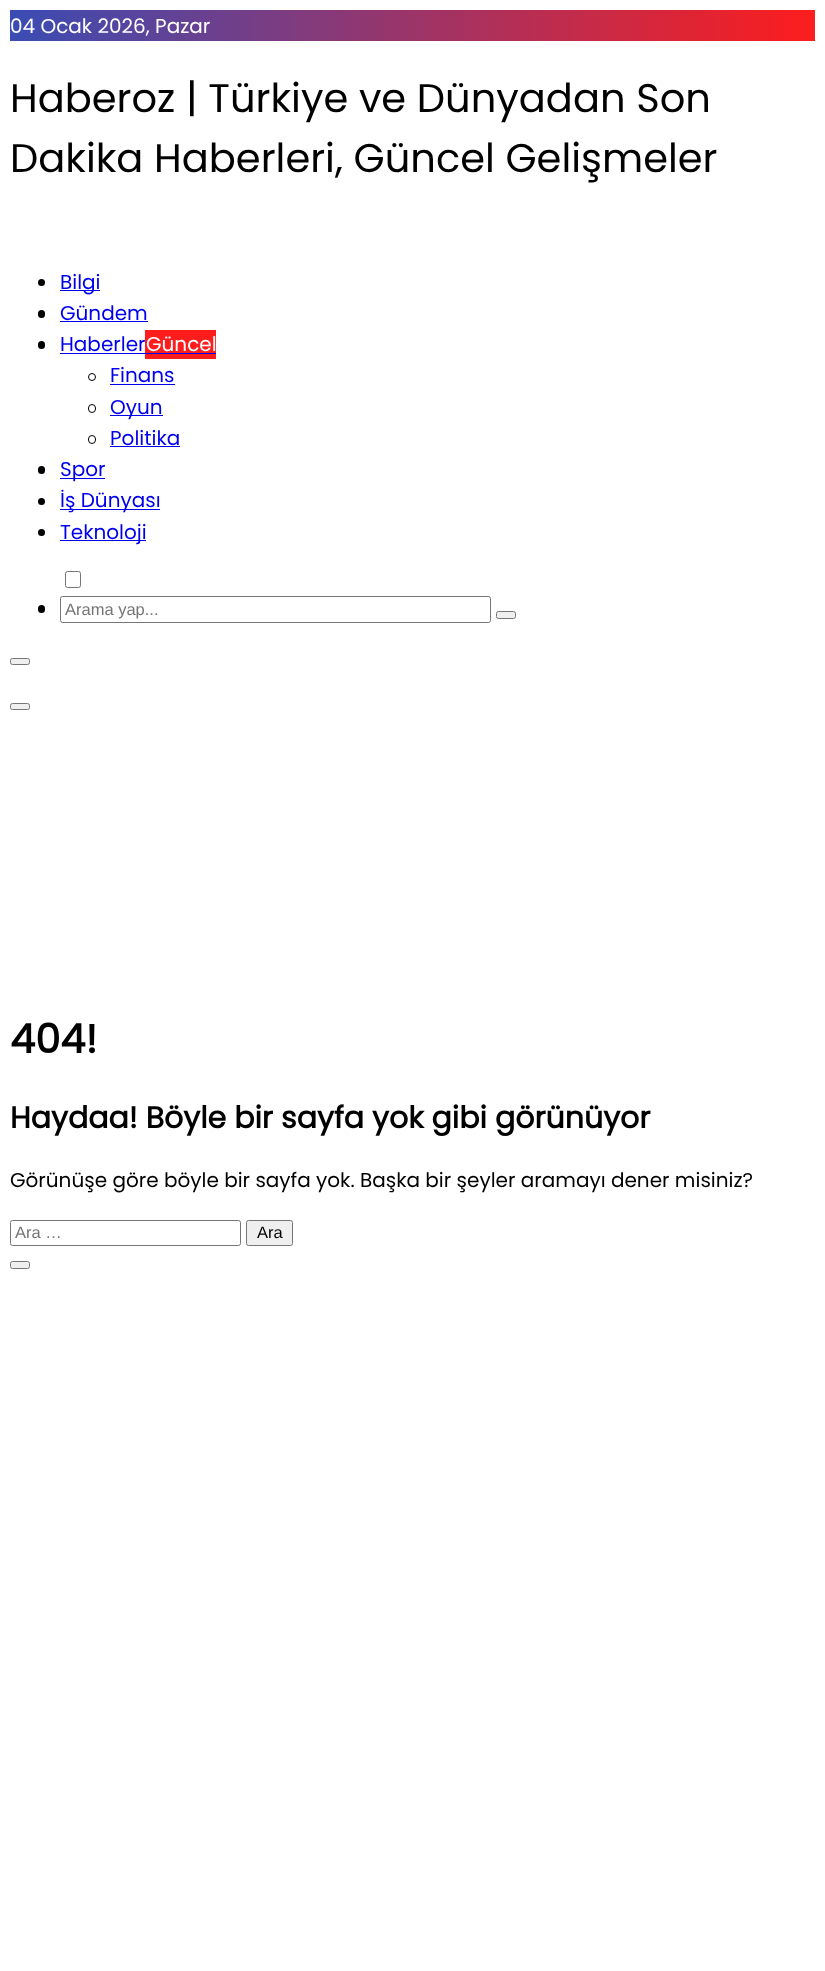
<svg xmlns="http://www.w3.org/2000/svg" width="825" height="1971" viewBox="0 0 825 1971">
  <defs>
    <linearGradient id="g1" gradientUnits="userSpaceOnUse" x1="10" y1="26" x2="815" y2="26"><stop offset="0" stop-color="rgb(58,76,180)"/><stop offset="1" stop-color="rgb(253,29,29)"/></linearGradient>
  </defs>
  <rect width="100%" height="100%" fill="rgb(255,255,255)"/>
  <rect x="10" y="10" width="805" height="31" fill="url(#g1)"/>
  <text x="10" y="33" font-family="Poppins" font-size="20" fill="rgb(255,255,255)">04 Ocak 2026, Pazar</text>
  <g font-family="Poppins" font-size="40" fill="rgb(0,0,0)">
    <text>
      <tspan x="10" y="112">Haberoz | Türkiye ve Dünyadan Son</tspan>
      <tspan x="10" y="172">Dakika Haberleri, Güncel Gelişmeler</tspan>
    </text>
  </g>
  <circle cx="41.5" cy="282.5" r="3.5" fill="rgb(0,0,0)"/>
  <rect x="60" y="290" width="40" height="1" fill="rgb(0,0,238)"/>
  <text x="60" y="289" font-family="Poppins" font-size="20" fill="rgb(0,0,238)">Bilgi</text>
  <rect x="38" y="310" width="7" height="8" rx="3.5" fill="rgb(0,0,0)"/>
  <text x="60" y="320" font-family="Poppins" font-size="20" fill="rgb(0,0,238)">Gündem</text>
  <rect x="60" y="321" width="88" height="1" fill="rgb(0,0,238)"/>
  <rect x="38" y="341" width="7" height="8" rx="3.5" fill="rgb(0,0,0)"/>
  <text x="60" y="351" font-family="Poppins" font-size="20" fill="rgb(0,0,238)">Haberler</text>
  <rect x="60" y="353" width="85" height="1" fill="rgb(0,0,238)"/>
  <rect x="145" y="330" width="71" height="29" fill="rgb(253,29,29)"/>
  <rect x="145" y="353" width="71" height="1" fill="rgb(0,0,238)"/>
  <text x="146" y="351" font-family="Poppins" font-size="20" fill="rgb(255,255,255)">Güncel</text>
  <circle cx="92" cy="377" r="3.5" fill="none" stroke="rgb(0,0,0)"/>
  <text x="110" y="382" font-family="Poppins" font-size="20" fill="rgb(0,0,238)">Finans</text>
  <rect x="110" y="384" width="65" height="1" fill="rgb(0,0,238)"/>
  <rect x="88.5" y="404.5" width="7" height="8" rx="3.5" fill="none" stroke="rgb(0,0,0)"/>
  <rect x="110" y="415" width="53" height="1" fill="rgb(0,0,238)"/>
  <text x="110" y="414" font-family="Poppins" font-size="20" fill="rgb(0,0,238)">Oyun</text>
  <rect x="88.5" y="435.5" width="7" height="8" rx="3.5" fill="none" stroke="rgb(0,0,0)"/>
  <text x="110" y="445" font-family="Poppins" font-size="20" fill="rgb(0,0,238)">Politika</text>
  <rect x="110" y="446" width="70" height="1" fill="rgb(0,0,238)"/>
  <rect x="38" y="466" width="7" height="8" rx="3.5" fill="rgb(0,0,0)"/>
  <rect x="60" y="478" width="45" height="1" fill="rgb(0,0,238)"/>
  <text x="60" y="476" font-family="Poppins" font-size="20" fill="rgb(0,0,238)">Spor</text>
  <circle cx="41.5" cy="501.5" r="3.5" fill="rgb(0,0,0)"/>
  <rect x="60" y="509" width="100" height="1" fill="rgb(0,0,238)"/>
  <text x="60" y="507" font-family="Poppins" font-size="20" fill="rgb(0,0,238)">İş Dünyası</text>
  <circle cx="41.5" cy="532.5" r="3.5" fill="rgb(0,0,0)"/>
  <rect x="60" y="540" width="86" height="1" fill="rgb(0,0,238)"/>
  <text x="60" y="539" font-family="Poppins" font-size="20" fill="rgb(0,0,238)">Teknoloji</text>
  <rect x="65.5" y="571.5" width="15" height="16" rx="2" fill="none" stroke="rgb(118,118,118)"/>
  <rect x="38" y="605" width="7" height="8" rx="3.5" fill="rgb(0,0,0)"/>
  <rect x="60.5" y="596.5" width="430" height="26" rx="2" fill="none" stroke="rgb(118,118,118)"/>
  <text x="65" y="615" font-family="Liberation Sans" font-size="16.5" fill="rgb(117,117,117)">Arama yap...</text>
  <rect x="496.5" y="611.5" width="19" height="7" rx="2" fill="rgb(239,239,239)" stroke="rgb(118,118,118)"/>
  <rect x="10.5" y="658.5" width="19" height="6" rx="2" fill="rgb(239,239,239)" stroke="rgb(118,118,118)"/>
  <rect x="10.5" y="703.5" width="19" height="6" rx="2" fill="rgb(239,239,239)" stroke="rgb(118,118,118)"/>
  <text x="10" y="1053" font-family="Poppins" font-size="40" font-weight="bold" fill="rgb(0,0,0)">404!</text>
  <text x="10" y="1128" font-family="Poppins" font-size="30" font-weight="bold" fill="rgb(0,0,0)">Haydaa! Böyle bir sayfa yok gibi görünüyor</text>
  <text x="10" y="1187" font-family="Poppins" font-size="20" fill="rgb(0,0,0)">Görünüşe göre böyle bir sayfa yok. Başka bir şeyler aramayı dener misiniz?</text>
  <rect x="10.5" y="1220.5" width="230" height="25" rx="2" fill="none" stroke="rgb(118,118,118)"/>
  <text x="15" y="1238" font-family="Liberation Sans" font-size="16.5" fill="rgb(117,117,117)">Ara …</text>
  <rect x="246.5" y="1220.5" width="46" height="25" rx="2" fill="rgb(239,239,239)" stroke="rgb(118,118,118)"/>
  <text x="257" y="1238" font-family="Liberation Sans" font-size="16.5" fill="rgb(0,0,0)">Ara</text>
  <rect x="10.5" y="1261.5" width="19" height="7" rx="2" fill="rgb(239,239,239)" stroke="rgb(118,118,118)"/>
</svg>
